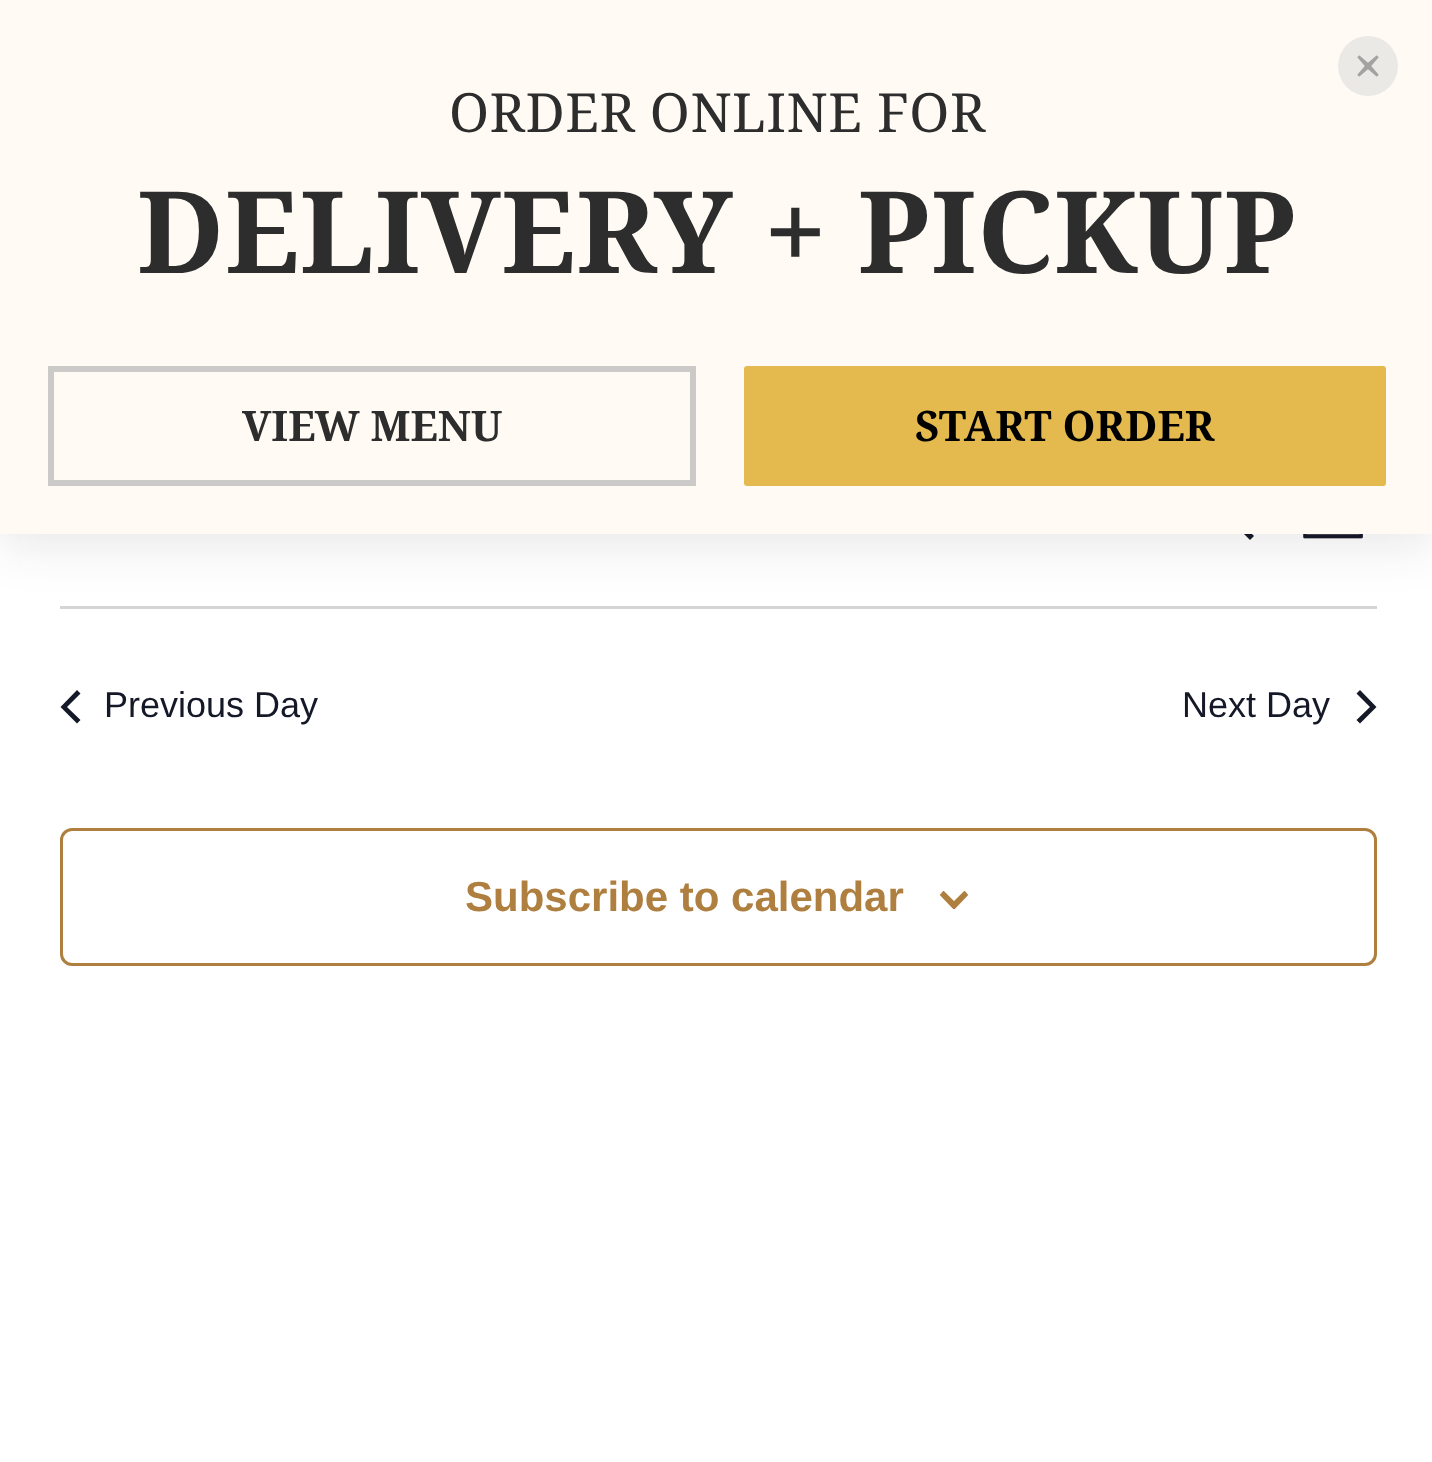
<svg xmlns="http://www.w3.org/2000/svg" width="1432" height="1462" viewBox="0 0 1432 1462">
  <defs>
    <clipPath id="clip1"><rect x="939" y="891" width="30" height="18"/></clipPath>
  </defs>
  <rect width="100%" height="100%" fill="rgb(255,255,255)"/>
  <path d="M1235 517L1254 536L1250 540L1231 521C1209 538 1180 511 1195 488C1199 483 1204 479 1211 477C1219 476 1227 478 1233 484C1242 493 1243 507 1235 517ZM1216 483C1191 483 1191 521 1216 521C1240 521 1240 483 1216 483Z" fill="rgb(20,24,39)" fill-rule="evenodd"/>
  <image x="1303" y="534" width="60" height="5" href="pic2.png"/>
  <rect x="60" y="606" width="1317" height="3" fill="rgb(213,213,213)"/>
  <rect x="0" y="12" width="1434" height="534" fill="rgba(33,30,30,0.1)" filter="blur(24px)"/>
  <rect x="0" y="0" width="1432" height="534" fill="rgb(255,251,244)"/>
  <circle cx="1368" cy="66" r="30" fill="rgb(235,233,230)"/>
  <image x="1357" y="55" width="22" height="22" href="pic1.png"/>
  <text x="449" y="132" font-family="Noto Serif" font-size="54" letter-spacing="0.5" fill="rgb(46,45,45)">ORDER ONLINE FOR</text>
  <text x="137" y="273" font-family="Noto Serif" font-size="114" font-weight="bold" letter-spacing="0.5" fill="rgb(46,45,45)">DELIVERY + PICKUP</text>
  <rect x="51" y="369" width="642" height="114" fill="none" stroke="rgb(204,202,200)" stroke-width="6"/>
  <text x="242" y="441" font-family="Noto Serif" font-size="42" font-weight="bold" fill="rgb(46,45,45)">VIEW MENU</text>
  <rect x="744" y="366" width="642" height="120" rx="3" fill="rgb(228,186,78)"/>
  <text x="915" y="441" font-family="Noto Serif" font-size="42" font-weight="bold" fill="rgb(0,0,0)">START ORDER</text>
  <path d="M80.5 720L77 723.5L60.5 707L77 690L80.5 693.5L67 707Z" fill="rgb(20,24,39)"/>
  <g font-family="Liberation Sans" font-size="36" fill="rgb(20,24,39)">
    <text x="104" y="717">Previous Day</text>
    <text x="1182" y="717">Next Day</text>
  </g>
  <path d="M1356.5 693.5L1360 690L1376.5 707L1360 723.5L1356.5 720L1370 707Z" fill="rgb(20,24,39)"/>
  <rect x="61.5" y="829.5" width="1314" height="135" rx="10.5" fill="none" stroke="rgb(175,127,63)" stroke-width="3"/>
  <text x="465" y="911" font-family="Liberation Sans" font-size="42" font-weight="bold" fill="rgb(175,127,63)">Subscribe to calendar</text>
  <path d="M943.5 892.5L954 903L964.5 892.5L966.5 895L954 908L941.5 895Z" fill="rgb(175,127,63)" fill-rule="evenodd"/>
  <g clip-path="url(#clip1)">
    <path d="M943.5 892.5L954 903L964.5 892.5L966.5 895L954 908L941.5 895Z" fill="none" stroke="rgb(175,127,63)" stroke-width="2.6"/>
  </g>
</svg>
